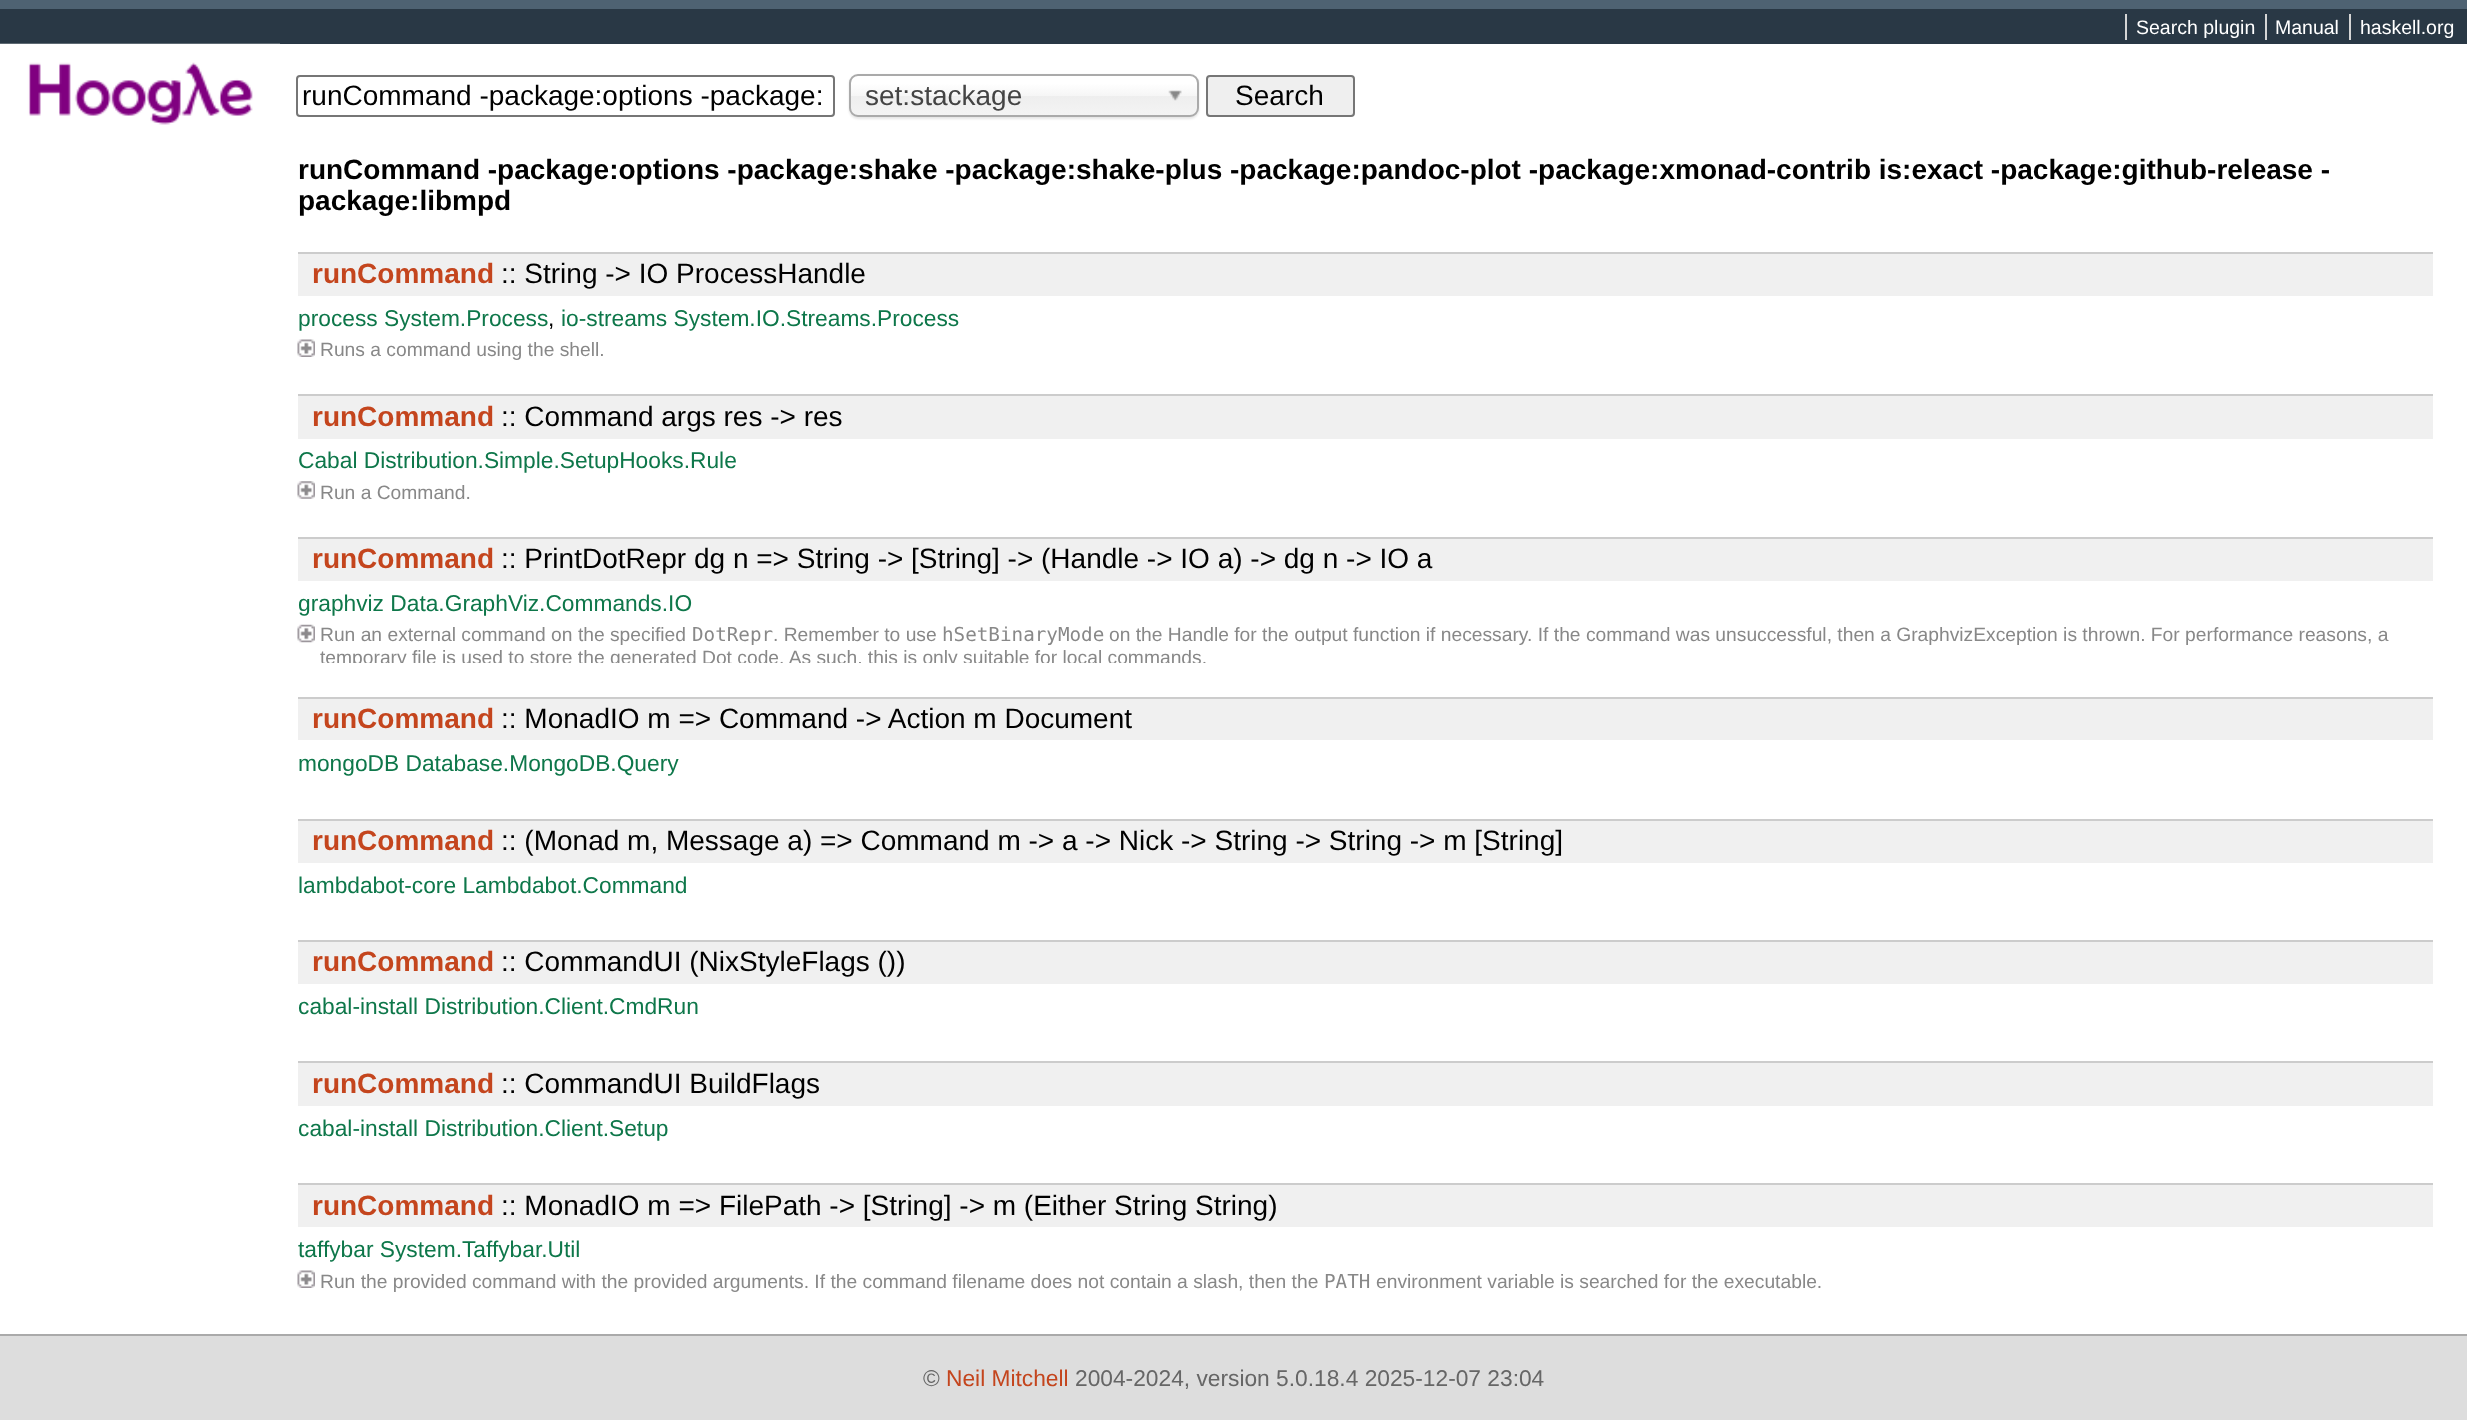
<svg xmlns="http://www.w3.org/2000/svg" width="2467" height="1420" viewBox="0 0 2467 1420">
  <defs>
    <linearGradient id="g1" gradientUnits="userSpaceOnUse" x1="1024" y1="75" x2="1024" y2="116"><stop offset="0.2" stop-color="rgb(255,255,255)"/><stop offset="0.5" stop-color="rgb(246,246,246)"/><stop offset="0.52" stop-color="rgb(238,238,238)"/><stop offset="1" stop-color="rgb(244,244,244)"/></linearGradient>
    <clipPath id="clip1"><rect x="298" y="625" width="2135" height="38"/></clipPath>
  </defs>
  <rect width="100%" height="100%" fill="rgb(255,255,255)"/>
  <rect x="0" y="9" width="2467" height="35" fill="rgb(41,56,69)"/>
  <rect x="0" y="0" width="2467" height="9" fill="rgb(78,98,114)"/>
  <text x="2136" y="34" font-family="Liberation Sans" font-size="19.5" fill="rgb(255,255,255)">Search plugin</text>
  <rect x="2125" y="14" width="2" height="26" fill="rgb(213,213,213)"/>
  <text x="2275" y="34" font-family="Liberation Sans" font-size="19.5" fill="rgb(255,255,255)">Manual</text>
  <rect x="2265" y="14" width="2" height="26" fill="rgb(213,213,213)"/>
  <text x="2360" y="34" font-family="Liberation Sans" font-size="19.5" fill="rgb(255,255,255)">haskell.org</text>
  <rect x="2349" y="14" width="2" height="26" fill="rgb(213,213,213)"/>
  <image x="0" y="43" width="280" height="82" href="pic1.png"/>
  <rect x="297" y="76" width="537" height="40" rx="3" fill="none" stroke="rgb(118,118,118)" stroke-width="2"/>
  <text x="302" y="105" font-family="Liberation Sans" font-size="28" fill="rgb(0,0,0)">runCommand -package:options -package:</text>
  <rect x="849" y="75" width="350" height="44" rx="9" fill="rgba(0,0,0,0.1)" filter="blur(1px)"/>
  <rect x="851" y="75" width="346" height="41" rx="7" fill="url(#g1)"/>
  <rect x="850" y="75" width="348" height="41" rx="8" fill="none" stroke="rgb(170,170,170)" stroke-width="2"/>
  <text x="865" y="105" font-family="Liberation Sans" font-size="28" fill="rgb(68,68,68)">set:stackage</text>
  <image x="1168" y="90" width="14" height="11" href="pic2.png"/>
  <rect x="1207" y="76" width="147" height="40" rx="3" fill="rgb(239,239,239)" stroke="rgb(118,118,118)" stroke-width="2"/>
  <text x="1235" y="105" font-family="Liberation Sans" font-size="28" fill="rgb(0,0,0)">Search</text>
  <g font-family="Liberation Sans" font-size="28" font-weight="bold" fill="rgb(0,0,0)">
    <text>
      <tspan x="298" y="179">runCommand -package:options -package:shake -package:shake-plus -package:pandoc-plot -package:xmonad-contrib is:exact -package:github-release -</tspan>
      <tspan x="298" y="210">package:libmpd</tspan>
    </text>
  </g>
  <rect x="298" y="254" width="2135" height="42" fill="rgb(240,240,240)"/>
  <rect x="298" y="252" width="2135" height="2" fill="rgb(204,204,204)"/>
  <text x="312" y="283" font-family="Liberation Sans" font-size="28" font-weight="bold" fill="rgb(196,69,29)">runCommand</text>
  <text x="501" y="283" font-family="Liberation Sans" font-size="28" fill="rgb(0,0,0)">:: String -&gt; IO ProcessHandle</text>
  <text x="298" y="326" font-family="Liberation Sans" font-size="22.75" fill="rgb(14,119,74)">process System.Process</text>
  <text x="548" y="326" font-family="Liberation Sans" font-size="22.75" fill="rgb(0,0,0)">,</text>
  <text x="561" y="326" font-family="Liberation Sans" font-size="22.75" fill="rgb(14,119,74)">io-streams System.IO.Streams.Process</text>
  <image x="297" y="339" width="18" height="18" href="pic3.png"/>
  <text x="320" y="356" font-family="Liberation Sans" font-size="19.25" fill="rgb(136,136,136)">Runs a command using the shell.</text>
  <rect x="298" y="396" width="2135" height="43" fill="rgb(240,240,240)"/>
  <rect x="298" y="394" width="2135" height="2" fill="rgb(204,204,204)"/>
  <text x="312" y="426" font-family="Liberation Sans" font-size="28" font-weight="bold" fill="rgb(196,69,29)">runCommand</text>
  <text x="501" y="426" font-family="Liberation Sans" font-size="28" fill="rgb(0,0,0)">:: Command args res -&gt; res</text>
  <text x="298" y="468" font-family="Liberation Sans" font-size="22.75" fill="rgb(14,119,74)">Cabal Distribution.Simple.SetupHooks.Rule</text>
  <image x="297" y="481" width="18" height="18" href="pic4.png"/>
  <text x="320" y="499" font-family="Liberation Sans" font-size="19.25" fill="rgb(136,136,136)">Run a Command.</text>
  <rect x="298" y="539" width="2135" height="42" fill="rgb(240,240,240)"/>
  <rect x="298" y="537" width="2135" height="2" fill="rgb(204,204,204)"/>
  <text x="312" y="568" font-family="Liberation Sans" font-size="28" font-weight="bold" fill="rgb(196,69,29)">runCommand</text>
  <text x="501" y="568" font-family="Liberation Sans" font-size="28" fill="rgb(0,0,0)">:: PrintDotRepr dg n =&gt; String -&gt; [String] -&gt; (Handle -&gt; IO a) -&gt; dg n -&gt; IO a</text>
  <text x="298" y="611" font-family="Liberation Sans" font-size="22.75" fill="rgb(14,119,74)">graphviz Data.GraphViz.Commands.IO</text>
  <image x="297" y="624" width="18" height="19" href="pic5.png"/>
  <text x="320" y="641" font-family="Liberation Sans" font-size="19.25" fill="rgb(136,136,136)">Run an external command on the specified</text>
  <text x="692" y="641" font-family="DejaVu Sans Mono" font-size="19.25" fill="rgb(136,136,136)">DotRepr</text>
  <text x="773" y="641" font-family="Liberation Sans" font-size="19.25" fill="rgb(136,136,136)">. Remember to use</text>
  <text x="942" y="641" font-family="DejaVu Sans Mono" font-size="19.25" fill="rgb(136,136,136)">hSetBinaryMode</text>
  <text x="1109" y="641" font-family="Liberation Sans" font-size="19.25" fill="rgb(136,136,136)">on the Handle for the output function if necessary. If the command was unsuccessful, then a GraphvizException is thrown. For performance reasons, a</text>
  <g clip-path="url(#clip1)">
    <text x="320" y="664" font-family="Liberation Sans" font-size="19.25" fill="rgb(136,136,136)">temporary file is used to store the generated Dot code. As such, this is only suitable for local commands.</text>
  </g>
  <rect x="298" y="699" width="2135" height="41" fill="rgb(240,240,240)"/>
  <rect x="298" y="697" width="2135" height="2" fill="rgb(204,204,204)"/>
  <text x="312" y="728" font-family="Liberation Sans" font-size="28" font-weight="bold" fill="rgb(196,69,29)">runCommand</text>
  <text x="501" y="728" font-family="Liberation Sans" font-size="28" fill="rgb(0,0,0)">:: MonadIO m =&gt; Command -&gt; Action m Document</text>
  <text x="298" y="771" font-family="Liberation Sans" font-size="22.75" fill="rgb(14,119,74)">mongoDB Database.MongoDB.Query</text>
  <rect x="298" y="821" width="2135" height="42" fill="rgb(240,240,240)"/>
  <rect x="298" y="819" width="2135" height="2" fill="rgb(204,204,204)"/>
  <text x="312" y="850" font-family="Liberation Sans" font-size="28" font-weight="bold" fill="rgb(196,69,29)">runCommand</text>
  <text x="501" y="850" font-family="Liberation Sans" font-size="28" fill="rgb(0,0,0)">:: (Monad m, Message a) =&gt; Command m -&gt; a -&gt; Nick -&gt; String -&gt; String -&gt; m [String]</text>
  <text x="298" y="893" font-family="Liberation Sans" font-size="22.75" fill="rgb(14,119,74)">lambdabot-core Lambdabot.Command</text>
  <rect x="298" y="942" width="2135" height="42" fill="rgb(240,240,240)"/>
  <rect x="298" y="940" width="2135" height="2" fill="rgb(204,204,204)"/>
  <text x="312" y="971" font-family="Liberation Sans" font-size="28" font-weight="bold" fill="rgb(196,69,29)">runCommand</text>
  <text x="501" y="971" font-family="Liberation Sans" font-size="28" fill="rgb(0,0,0)">:: CommandUI (NixStyleFlags ())</text>
  <text x="298" y="1014" font-family="Liberation Sans" font-size="22.75" fill="rgb(14,119,74)">cabal-install Distribution.Client.CmdRun</text>
  <rect x="298" y="1063" width="2135" height="43" fill="rgb(240,240,240)"/>
  <rect x="298" y="1061" width="2135" height="2" fill="rgb(204,204,204)"/>
  <text x="312" y="1093" font-family="Liberation Sans" font-size="28" font-weight="bold" fill="rgb(196,69,29)">runCommand</text>
  <text x="501" y="1093" font-family="Liberation Sans" font-size="28" fill="rgb(0,0,0)">:: CommandUI BuildFlags</text>
  <text x="298" y="1136" font-family="Liberation Sans" font-size="22.75" fill="rgb(14,119,74)">cabal-install Distribution.Client.Setup</text>
  <rect x="298" y="1185" width="2135" height="42" fill="rgb(240,240,240)"/>
  <rect x="298" y="1183" width="2135" height="2" fill="rgb(204,204,204)"/>
  <text x="312" y="1215" font-family="Liberation Sans" font-size="28" font-weight="bold" fill="rgb(196,69,29)">runCommand</text>
  <text x="501" y="1215" font-family="Liberation Sans" font-size="28" fill="rgb(0,0,0)">:: MonadIO m =&gt; FilePath -&gt; [String] -&gt; m (Either String String)</text>
  <text x="298" y="1257" font-family="Liberation Sans" font-size="22.75" fill="rgb(14,119,74)">taffybar System.Taffybar.Util</text>
  <image x="297" y="1270" width="18" height="18" href="pic3.png"/>
  <text x="320" y="1288" font-family="Liberation Sans" font-size="19.25" fill="rgb(136,136,136)">Run the provided command with the provided arguments. If the command filename does not contain a slash, then the</text>
  <text x="1324" y="1288" font-family="DejaVu Sans Mono" font-size="19.25" fill="rgb(136,136,136)">PATH</text>
  <text x="1376" y="1288" font-family="Liberation Sans" font-size="19.25" fill="rgb(136,136,136)">environment variable is searched for the executable.</text>
  <rect x="0" y="1336" width="2467" height="84" fill="rgb(221,221,221)"/>
  <rect x="0" y="1334" width="2467" height="2" fill="rgb(170,170,170)"/>
  <text x="923" y="1386" font-family="Liberation Sans" font-size="22.75" fill="rgb(102,102,102)">©</text>
  <text x="946" y="1386" font-family="Liberation Sans" font-size="22.75" fill="rgb(196,69,29)">Neil Mitchell</text>
  <text x="1075" y="1386" font-family="Liberation Sans" font-size="22.75" fill="rgb(102,102,102)">2004-2024, version 5.0.18.4 2025-12-07 23:04</text>
</svg>
